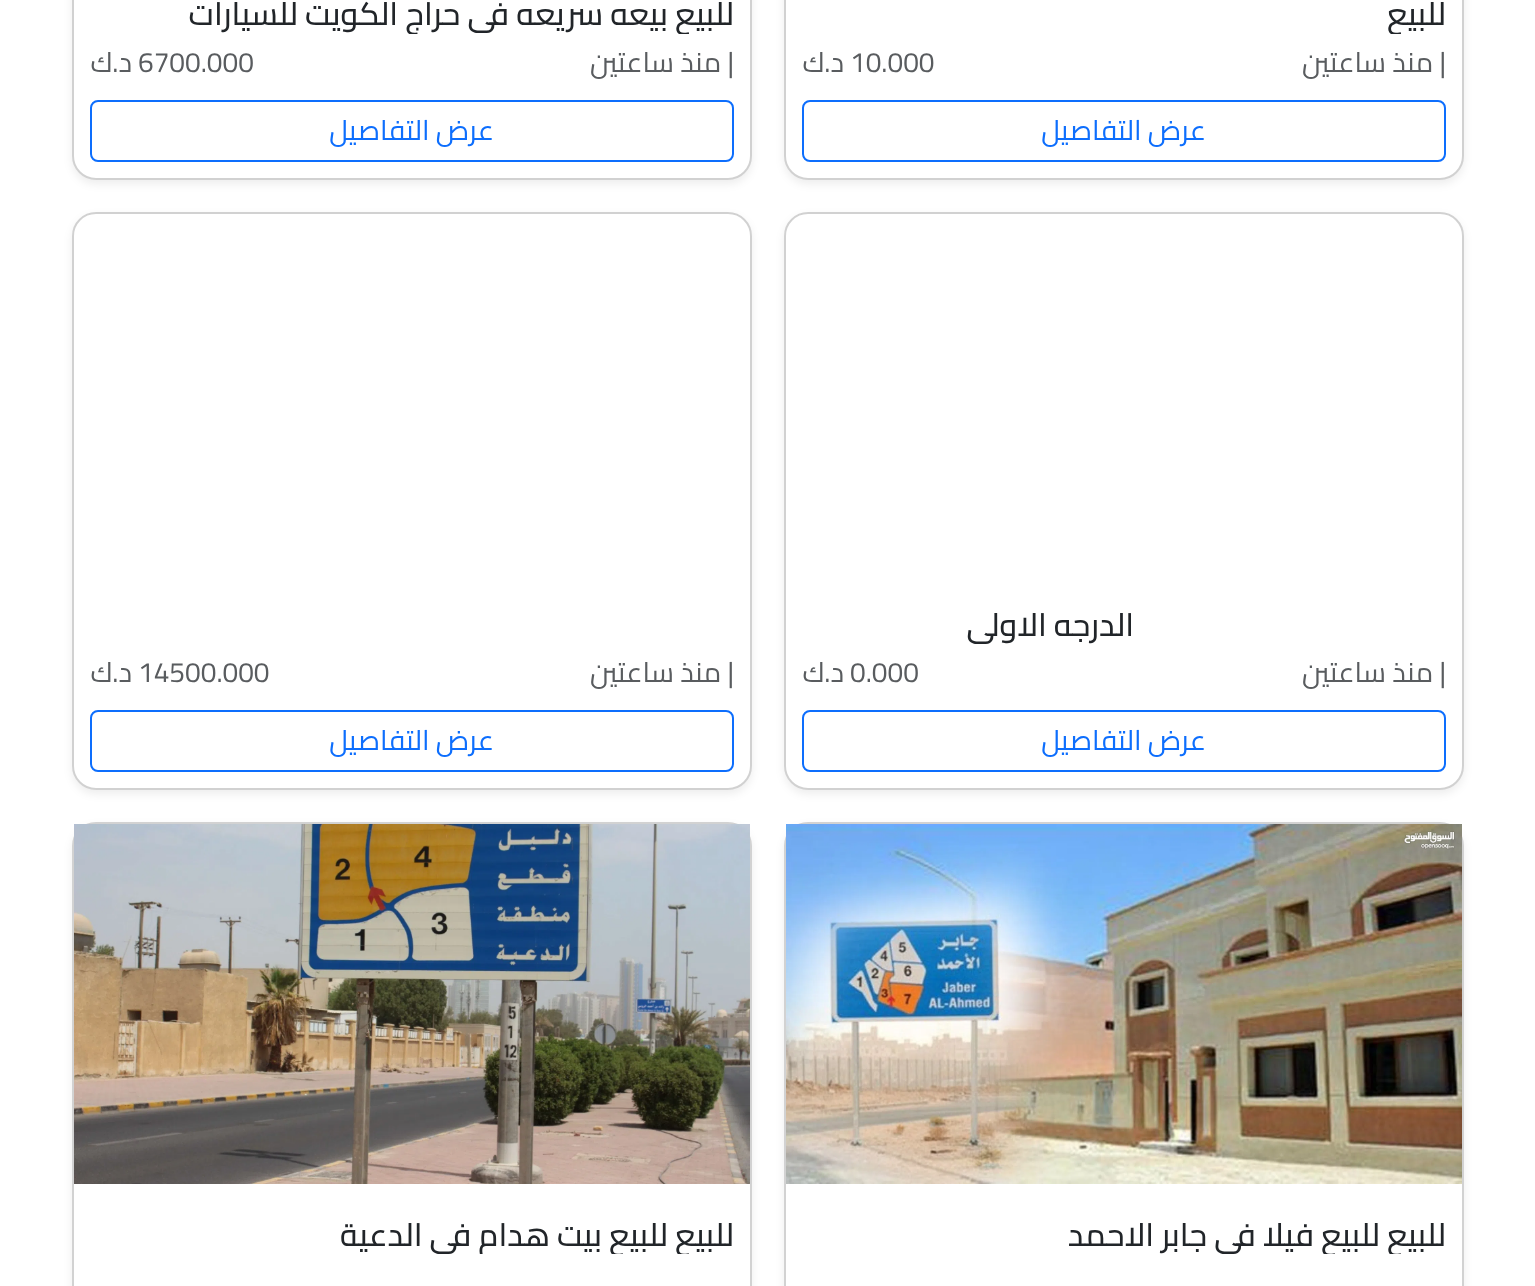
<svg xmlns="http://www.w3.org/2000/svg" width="1535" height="1286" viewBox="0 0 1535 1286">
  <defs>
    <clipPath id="clip1"><rect x="802" y="0" width="644" height="34"/></clipPath>
    <clipPath id="clip2"><rect x="90" y="0" width="644" height="34"/></clipPath>
    <clipPath id="clip3"><rect x="802" y="606" width="644" height="38"/></clipPath>
    <clipPath id="clip4"><rect x="802" y="1216" width="644" height="38"/></clipPath>
    <clipPath id="clip5"><rect x="90" y="1216" width="644" height="38"/></clipPath>
  </defs>
  <rect width="100%" height="100%" fill="rgb(255,255,255)"/>
  <rect x="784" y="-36" width="680" height="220" rx="24" fill="rgba(0,0,0,0.07)" filter="blur(4px)"/>
  <rect x="784" y="-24" width="680" height="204" rx="24" fill="rgb(255,255,255)"/>
  <rect x="785" y="-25" width="678" height="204" rx="23" fill="none" stroke="rgba(0,0,0,0.18)" stroke-width="2"/>
  <g clip-path="url(#clip1)">
    <text x="1446" y="25" font-family="Cairo" font-size="32" font-weight="500" direction="rtl" fill="rgb(33,37,41)">للبيع</text>
  </g>
  <text x="1446" y="72" font-family="Cairo" font-size="28" direction="rtl" fill="rgb(89,92,95)">| منذ ساعتين</text>
  <text x="850" y="72" font-family="Cairo" font-size="28" fill="rgb(89,92,95)">10.000</text>
  <text x="844" y="72" font-family="Cairo" font-size="28" direction="rtl" fill="rgb(89,92,95)">د.ك</text>
  <rect x="803" y="101" width="642" height="60" rx="7" fill="none" stroke="rgb(13,110,253)" stroke-width="2"/>
  <text x="1206" y="140" font-family="Cairo" font-size="28" direction="rtl" fill="rgb(13,110,253)">عرض التفاصيل</text>
  <rect x="72" y="-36" width="680" height="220" rx="24" fill="rgba(0,0,0,0.07)" filter="blur(4px)"/>
  <rect x="72" y="-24" width="680" height="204" rx="24" fill="rgb(255,255,255)"/>
  <rect x="73" y="-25" width="678" height="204" rx="23" fill="none" stroke="rgba(0,0,0,0.18)" stroke-width="2"/>
  <g clip-path="url(#clip2)">
    <text x="734" y="25" font-family="Cairo" font-size="32" font-weight="500" direction="rtl" fill="rgb(33,37,41)">للبيع</text>
  </g>
  <text x="668" y="25" font-family="Cairo" font-size="32" font-weight="500" direction="rtl" fill="rgb(33,37,41)">بيعه سريعه</text>
  <g clip-path="url(#clip2)">
    <text x="509" y="25" font-family="Cairo" font-size="32" font-weight="500" direction="rtl" fill="rgb(33,37,41)">في حراج الكويت للسيارات</text>
  </g>
  <text x="734" y="72" font-family="Cairo" font-size="28" direction="rtl" fill="rgb(89,92,95)">| منذ ساعتين</text>
  <text x="138" y="72" font-family="Cairo" font-size="28" fill="rgb(89,92,95)">6700.000</text>
  <text x="132" y="72" font-family="Cairo" font-size="28" direction="rtl" fill="rgb(89,92,95)">د.ك</text>
  <rect x="91" y="101" width="642" height="60" rx="7" fill="none" stroke="rgb(13,110,253)" stroke-width="2"/>
  <text x="494" y="140" font-family="Cairo" font-size="28" direction="rtl" fill="rgb(13,110,253)">عرض التفاصيل</text>
  <rect x="784" y="216" width="680" height="578" rx="24" fill="rgba(0,0,0,0.07)" filter="blur(4px)"/>
  <rect x="784" y="212" width="680" height="578" rx="24" fill="rgb(255,255,255)"/>
  <rect x="785" y="213" width="678" height="576" rx="23" fill="none" stroke="rgba(0,0,0,0.18)" stroke-width="2"/>
  <g clip-path="url(#clip3)">
    <text x="1134" y="636" font-family="Cairo" font-size="32" font-weight="500" direction="rtl" fill="rgb(33,37,41)">الدرجه الاولي</text>
  </g>
  <text x="1446" y="682" font-family="Cairo" font-size="28" direction="rtl" fill="rgb(89,92,95)">| منذ ساعتين</text>
  <text x="850" y="682" font-family="Cairo" font-size="28" fill="rgb(89,92,95)">0.000</text>
  <text x="844" y="682" font-family="Cairo" font-size="28" direction="rtl" fill="rgb(89,92,95)">د.ك</text>
  <rect x="803" y="711" width="642" height="60" rx="7" fill="none" stroke="rgb(13,110,253)" stroke-width="2"/>
  <text x="1206" y="750" font-family="Cairo" font-size="28" direction="rtl" fill="rgb(13,110,253)">عرض التفاصيل</text>
  <rect x="72" y="216" width="680" height="578" rx="24" fill="rgba(0,0,0,0.07)" filter="blur(4px)"/>
  <rect x="72" y="212" width="680" height="578" rx="24" fill="rgb(255,255,255)"/>
  <rect x="73" y="213" width="678" height="576" rx="23" fill="none" stroke="rgba(0,0,0,0.18)" stroke-width="2"/>
  <text x="734" y="682" font-family="Cairo" font-size="28" direction="rtl" fill="rgb(89,92,95)">| منذ ساعتين</text>
  <text x="138" y="682" font-family="Cairo" font-size="28" fill="rgb(89,92,95)">14500.000</text>
  <text x="132" y="682" font-family="Cairo" font-size="28" direction="rtl" fill="rgb(89,92,95)">د.ك</text>
  <rect x="91" y="711" width="642" height="60" rx="7" fill="none" stroke="rgb(13,110,253)" stroke-width="2"/>
  <text x="494" y="750" font-family="Cairo" font-size="28" direction="rtl" fill="rgb(13,110,253)">عرض التفاصيل</text>
  <rect x="784" y="826" width="680" height="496" rx="24" fill="rgba(0,0,0,0.07)" filter="blur(4px)"/>
  <rect x="785" y="823" width="678" height="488" rx="23" fill="rgb(255,255,255)" stroke="rgb(210,210,210)" stroke-width="2"/>
  <image x="786" y="824" width="676" height="360" href="pic1.png"/>
  <g clip-path="url(#clip4)">
    <g font-family="Cairo" font-size="32" font-weight="500" direction="rtl" fill="rgb(33,37,41)">
      <text x="1446" y="1246">للبيع</text>
      <text x="1380" y="1246">للبيع فيلا في جابر الاحمد</text>
    </g>
  </g>
  <rect x="72" y="826" width="680" height="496" rx="24" fill="rgba(0,0,0,0.07)" filter="blur(4px)"/>
  <rect x="73" y="823" width="678" height="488" rx="23" fill="rgb(255,255,255)" stroke="rgb(210,210,210)" stroke-width="2"/>
  <image x="74" y="824" width="676" height="360" href="pic2.png"/>
  <g clip-path="url(#clip5)">
    <g font-family="Cairo" font-size="32" font-weight="500" direction="rtl" fill="rgb(33,37,41)">
      <text x="734" y="1246">للبيع</text>
      <text x="668" y="1246">للبيع بيت هدام في الدعية</text>
    </g>
  </g>
</svg>
